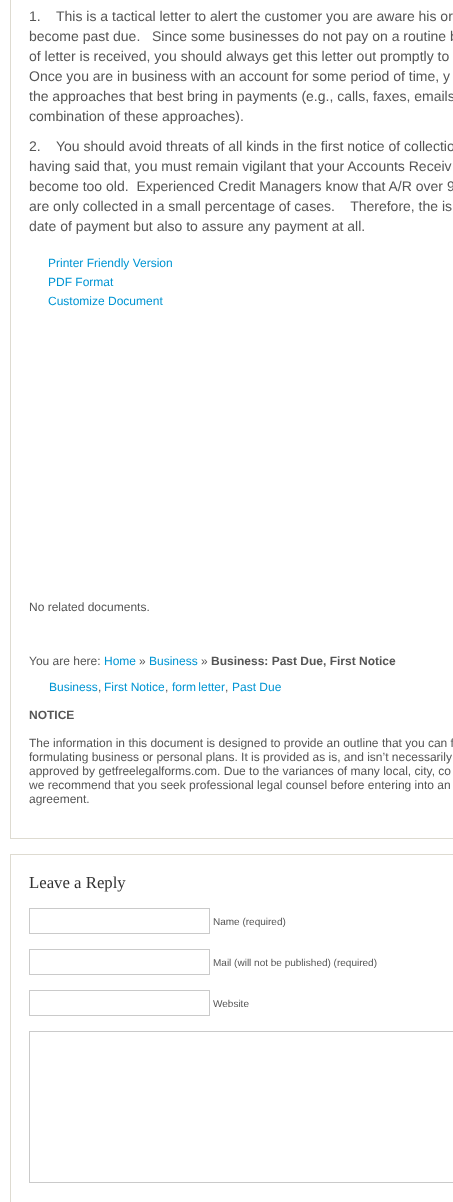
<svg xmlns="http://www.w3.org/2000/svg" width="453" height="1202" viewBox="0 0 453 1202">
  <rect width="100%" height="100%" fill="rgb(255,255,255)"/>
  <rect x="10.5" y="-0.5" width="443" height="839" fill="none" stroke="rgb(222,219,209)"/>
  <g font-family="Liberation Sans" font-size="14" fill="rgb(85,85,85)">
    <text xml:space="preserve"><tspan x="29" y="21">1.    This is a tactical letter to alert the customer you are aware his or</tspan><tspan x="29" y="41">become past due.   Since some businesses do not pay on a routine b</tspan><tspan x="29" y="61">of letter is received, you should always get this letter out promptly to</tspan><tspan x="29" y="81">Once you are in business with an account for some period of time, y</tspan><tspan x="29" y="101">the approaches that best bring in payments (e.g., calls, faxes, emails</tspan><tspan x="29" y="121">combination of these approaches).</tspan></text>
    <text xml:space="preserve"><tspan x="29" y="151">2.    You should avoid threats of all kinds in the first notice of collectio</tspan><tspan x="29" y="171">having said that, you must remain vigilant that your Accounts Receiv</tspan><tspan x="29" y="191">become too old.  Experienced Credit Managers know that A/R over 9</tspan><tspan x="29" y="211">are only collected in a small percentage of cases.    Therefore, the is</tspan><tspan x="29" y="231">date of payment but also to assure any payment at all.</tspan></text>
  </g>
  <g font-family="Liberation Sans" font-size="12" fill="rgb(0,149,211)">
    <text>
      <tspan x="48" y="267">Printer Friendly Version</tspan>
      <tspan x="48" y="286">PDF Format</tspan>
      <tspan x="48" y="305">Customize Document</tspan>
    </text>
  </g>
  <g font-family="Liberation Sans" font-size="12" fill="rgb(85,85,85)">
    <text x="29" y="611">No related documents.</text>
    <text x="29" y="665">You are here:</text>
  </g>
  <text x="104" y="665" font-family="Liberation Sans" font-size="12" fill="rgb(0,149,211)">Home</text>
  <text x="139" y="665" font-family="Liberation Sans" font-size="12" fill="rgb(85,85,85)">»</text>
  <text x="149" y="665" font-family="Liberation Sans" font-size="12" fill="rgb(0,149,211)">Business</text>
  <text x="201" y="665" font-family="Liberation Sans" font-size="12" fill="rgb(85,85,85)">»</text>
  <text x="211" y="665" font-family="Liberation Sans" font-size="12" font-weight="bold" fill="rgb(85,85,85)">Business: Past Due, First Notice</text>
  <text x="49" y="691" font-family="Liberation Sans" font-size="12" fill="rgb(0,149,211)">Business</text>
  <text x="98" y="691" font-family="Liberation Sans" font-size="12" fill="rgb(85,85,85)">,</text>
  <text x="104" y="691" font-family="Liberation Sans" font-size="12" fill="rgb(0,149,211)">First Notice</text>
  <text x="165" y="691" font-family="Liberation Sans" font-size="12" fill="rgb(85,85,85)">,</text>
  <text x="172" y="691" word-spacing="-1" font-family="Liberation Sans" font-size="12" fill="rgb(0,149,211)">form letter</text>
  <text x="225" y="691" font-family="Liberation Sans" font-size="12" fill="rgb(85,85,85)">,</text>
  <text x="232" y="691" font-family="Liberation Sans" font-size="12" fill="rgb(0,149,211)">Past Due</text>
  <text x="29" y="719" font-family="Liberation Sans" font-size="12" font-weight="bold" fill="rgb(85,85,85)">NOTICE</text>
  <g font-family="Liberation Sans" font-size="12" fill="rgb(85,85,85)">
    <text>
      <tspan x="29" y="747">The information in this document is designed to provide an outline that you can f</tspan>
      <tspan x="29" y="761">formulating business or personal plans. It is provided as is, and isn’t necessarily</tspan>
      <tspan x="29" y="775">approved by getfreelegalforms.com. Due to the variances of many local, city, co</tspan>
      <tspan x="29" y="789">we recommend that you seek professional legal counsel before entering into an</tspan>
      <tspan x="29" y="803">agreement.</tspan>
    </text>
  </g>
  <rect x="10.5" y="854.5" width="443" height="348" fill="none" stroke="rgb(222,219,209)"/>
  <text x="29" y="888" font-family="Liberation Serif" font-size="16.75" fill="rgb(51,51,51)">Leave a Reply</text>
  <rect x="29.5" y="908.5" width="180" height="25" fill="none" stroke="rgb(202,202,202)"/>
  <text x="213" y="925" font-family="Liberation Sans" font-size="10" fill="rgb(85,85,85)">Name (required)</text>
  <rect x="29.5" y="949.5" width="180" height="25" fill="none" stroke="rgb(202,202,202)"/>
  <text x="213" y="966" font-family="Liberation Sans" font-size="10" fill="rgb(85,85,85)">Mail (will not be published) (required)</text>
  <rect x="29.5" y="990.5" width="180" height="25" fill="none" stroke="rgb(202,202,202)"/>
  <text x="213" y="1007" font-family="Liberation Sans" font-size="10" fill="rgb(85,85,85)">Website</text>
  <rect x="29.5" y="1031.5" width="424" height="151" fill="none" stroke="rgb(202,202,202)"/>
</svg>
